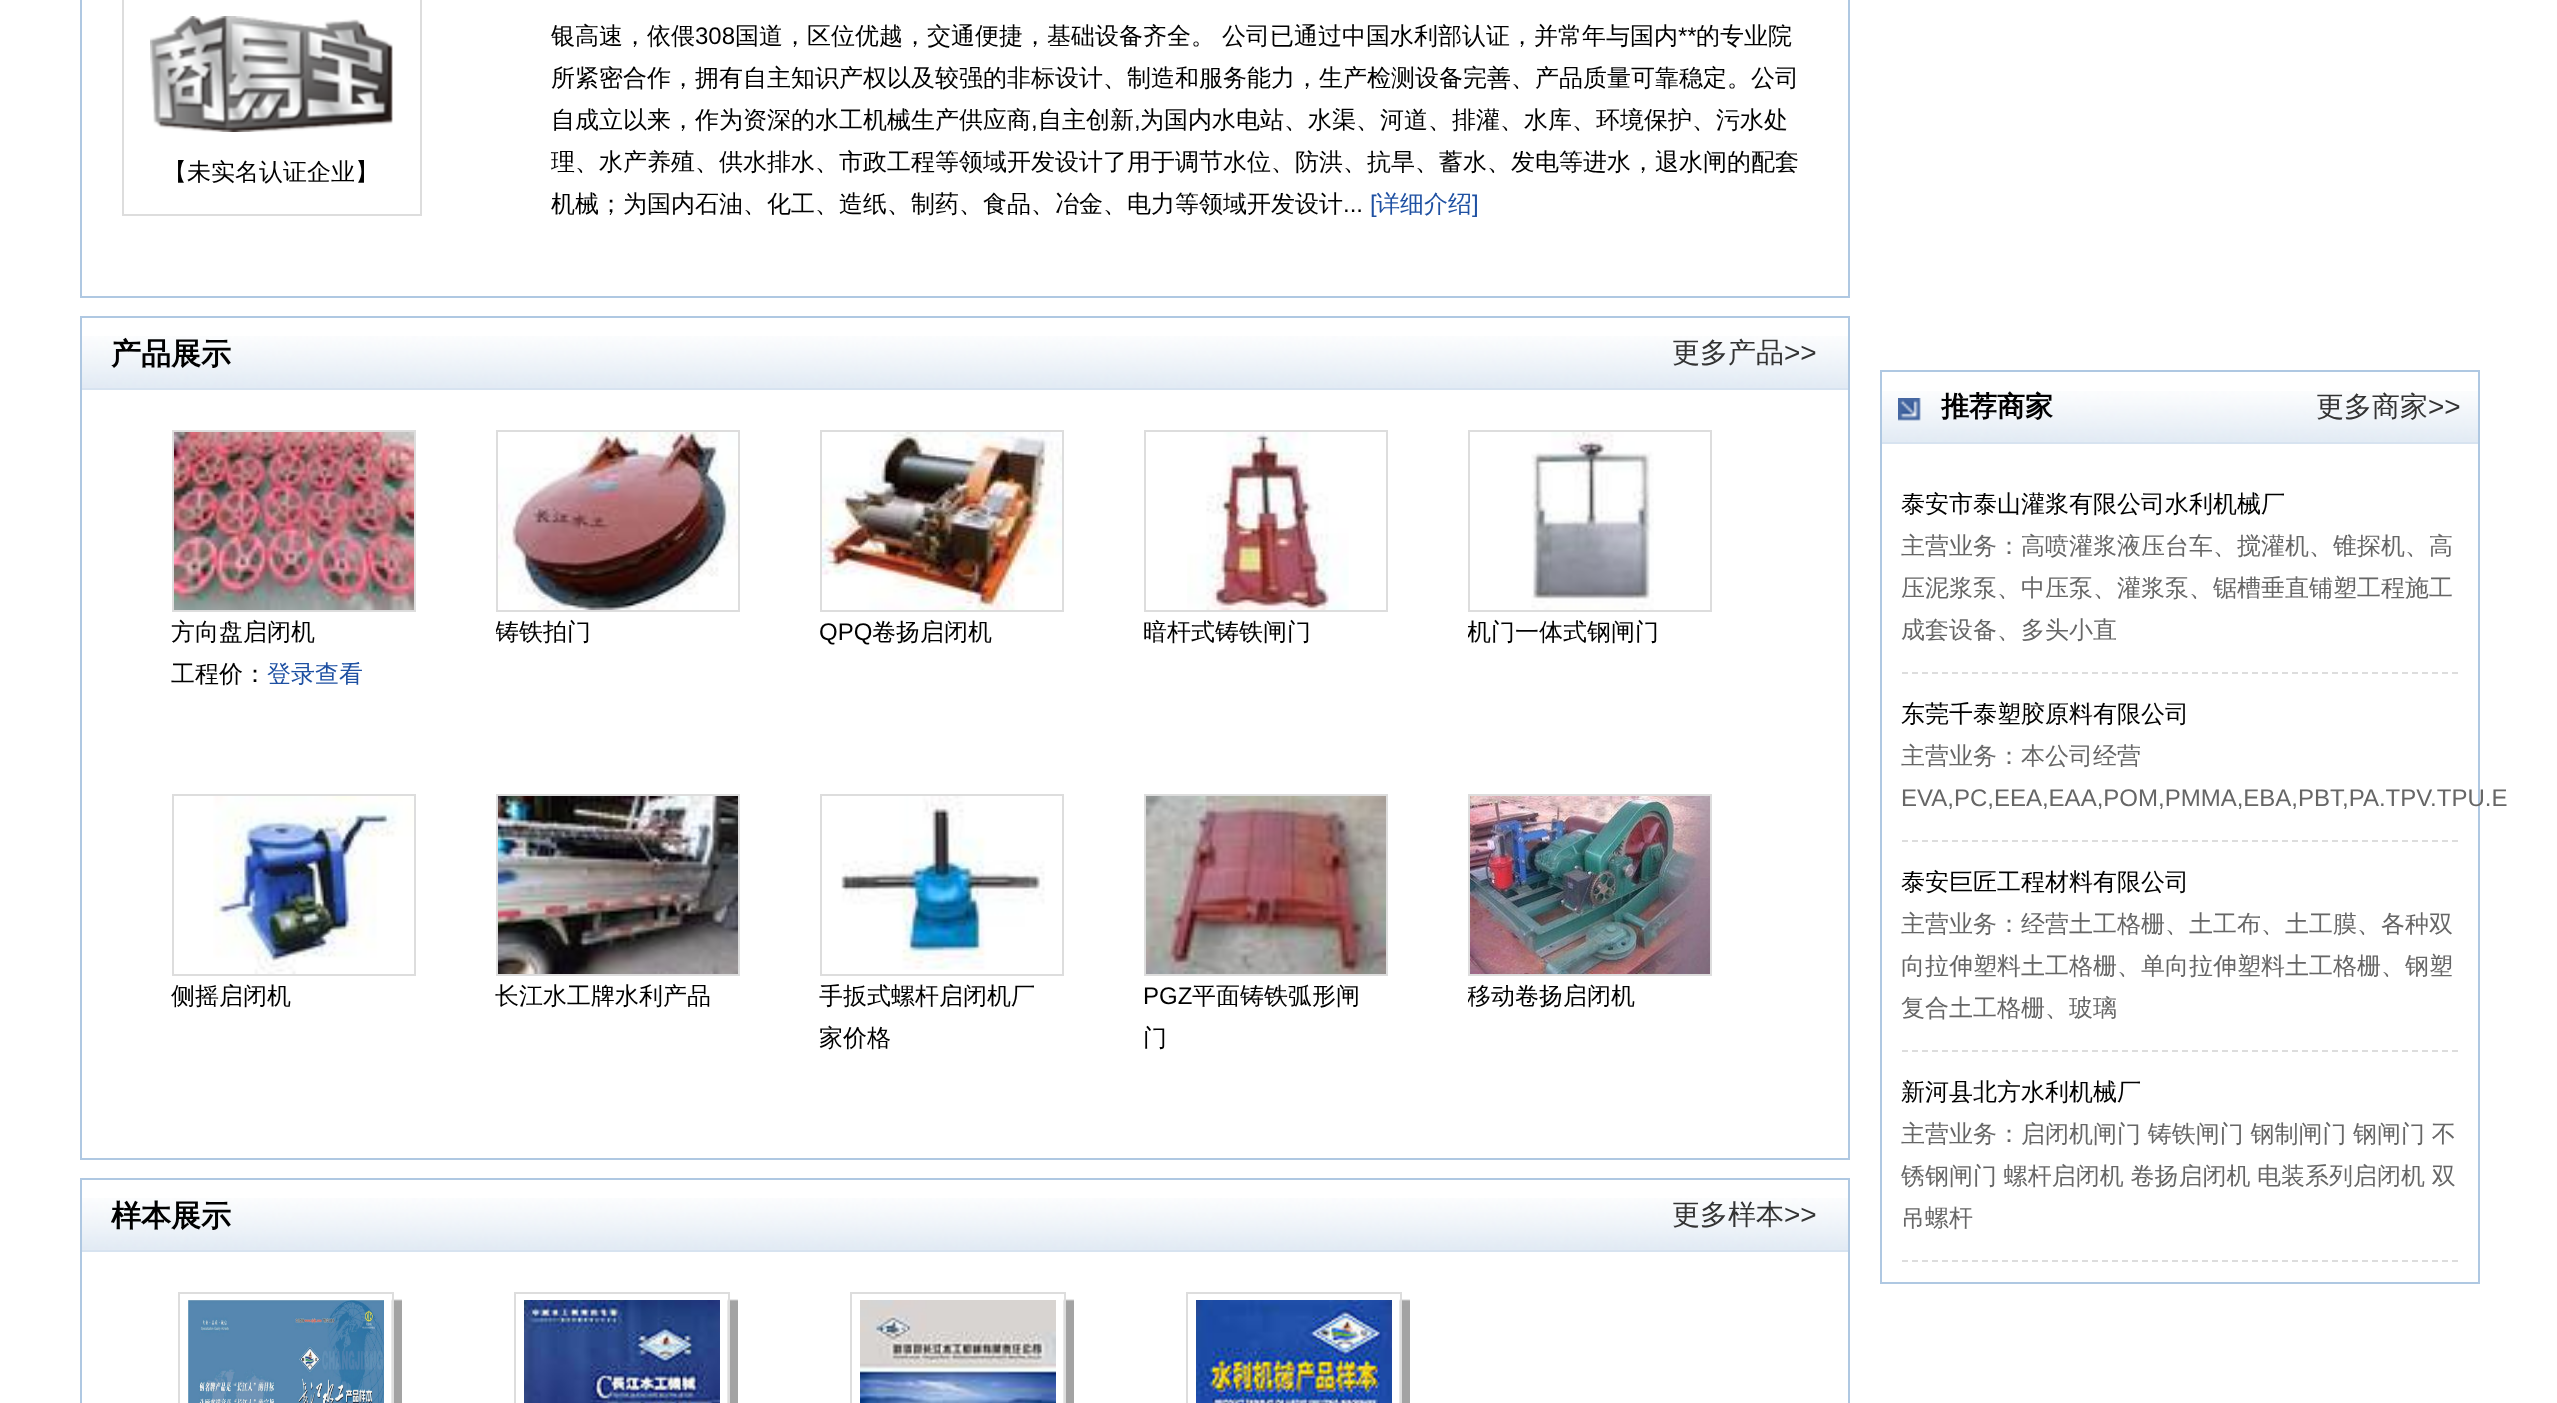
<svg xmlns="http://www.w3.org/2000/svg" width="2557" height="1403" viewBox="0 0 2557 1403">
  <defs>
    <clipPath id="clip1"><rect x="496" y="612" width="224" height="42"/></clipPath>
    <clipPath id="clip2"><rect x="1468" y="612" width="224" height="42"/></clipPath>
    <clipPath id="clip3"><rect x="1468" y="976" width="224" height="42"/></clipPath>
  </defs>
  <rect width="100%" height="100%" fill="rgb(255,255,255)"/>
  <rect x="81" y="-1" width="1768" height="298" fill="none" stroke="rgb(175,200,226)" stroke-width="2"/>
  <rect x="123" y="-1" width="298" height="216" fill="none" stroke="rgb(221,221,221)" stroke-width="2"/>
  <image x="150" y="16" width="243" height="116" href="pic1.png"/>
  <g font-family="WenQuanYi Zen Hei" font-size="24" font-weight="500" fill="rgb(0,0,0)">
    <text x="163" y="180">【未实名认证企业】</text>
    <text x="551" y="44">银高速，依偎</text>
  </g>
  <text x="695" y="44" font-family="Liberation Sans" font-size="24" fill="rgb(0,0,0)">308</text>
  <g font-family="WenQuanYi Zen Hei" font-size="24" font-weight="500" fill="rgb(0,0,0)">
    <text x="735" y="44">国道，区位优越，交通便捷，基础设备齐全。</text>
    <text x="1222" y="44">公司已通过中国水利部认证，并常年与国内</text>
  </g>
  <text x="1678" y="44" font-family="Liberation Sans" font-size="24" fill="rgb(0,0,0)">**</text>
  <g font-family="WenQuanYi Zen Hei" font-size="24" font-weight="500" fill="rgb(0,0,0)">
    <text x="1696" y="44">的专业院</text>
    <text>
      <tspan x="551" y="86">所紧密合作，拥有自主知识产权以及较强的非标设计、制造和服务能力，生产检测设备完善、产品质量可靠稳定。公司</tspan>
      <tspan x="551" y="128">自成立以来，作为资深的水工机械生产供应商</tspan>
    </text>
  </g>
  <text x="1031" y="128" font-family="Liberation Sans" font-size="24" fill="rgb(0,0,0)">,</text>
  <text x="1038" y="128" font-family="WenQuanYi Zen Hei" font-size="24" font-weight="500" fill="rgb(0,0,0)">自主创新</text>
  <text x="1134" y="128" font-family="Liberation Sans" font-size="24" fill="rgb(0,0,0)">,</text>
  <g font-family="WenQuanYi Zen Hei" font-size="24" font-weight="500" fill="rgb(0,0,0)">
    <text x="1140" y="128">为国内水电站、水渠、河道、排灌、水库、环境保护、污水处</text>
    <text>
      <tspan x="551" y="170">理、水产养殖、供水排水、市政工程等领域开发设计了用于调节水位、防洪、抗旱、蓄水、发电等进水，退水闸的配套</tspan>
      <tspan x="551" y="212">机械；为国内石油、化工、造纸、制药、食品、冶金、电力等领域开发设计</tspan>
    </text>
  </g>
  <text x="1343" y="212" font-family="Liberation Sans" font-size="24" fill="rgb(0,0,0)">...</text>
  <text x="1370" y="212" font-family="Liberation Sans" font-size="24" fill="rgb(30,80,162)">[</text>
  <text x="1376" y="212" font-family="WenQuanYi Zen Hei" font-size="24" font-weight="500" fill="rgb(30,80,162)">详细介绍</text>
  <text x="1472" y="212" font-family="Liberation Sans" font-size="24" fill="rgb(30,80,162)">]</text>
  <rect x="81" y="317" width="1768" height="842" fill="none" stroke="rgb(175,200,226)" stroke-width="2"/>
  <image x="82" y="336" width="1766" height="52" href="pic2.png"/>
  <rect x="82" y="388" width="1766" height="2" fill="rgb(215,227,240)"/>
  <text x="111" y="364" font-family="WenQuanYi Zen Hei" font-size="30" font-weight="bold" fill="rgb(0,0,0)">产品展示</text>
  <text x="1672" y="362" font-family="WenQuanYi Zen Hei" font-size="28" font-weight="500" fill="rgb(51,51,51)">更多产品</text>
  <text x="1784" y="362" font-family="Liberation Sans" font-size="28" fill="rgb(51,51,51)">&gt;&gt;</text>
  <rect x="173" y="431" width="242" height="180" fill="none" stroke="rgb(221,221,221)" stroke-width="2"/>
  <image x="174" y="432" width="240" height="178" href="pic3.png"/>
  <g font-family="WenQuanYi Zen Hei" font-size="24" font-weight="500" fill="rgb(0,0,0)">
    <text>
      <tspan x="171" y="640">方向盘启闭机</tspan>
      <tspan x="171" y="682">工程价：</tspan>
    </text>
  </g>
  <text x="267" y="682" font-family="WenQuanYi Zen Hei" font-size="24" font-weight="500" fill="rgb(30,80,162)">登录查看</text>
  <rect x="497" y="431" width="242" height="180" fill="none" stroke="rgb(221,221,221)" stroke-width="2"/>
  <image x="498" y="432" width="240" height="178" href="pic4.png"/>
  <g clip-path="url(#clip1)">
    <text x="495" y="640" font-family="WenQuanYi Zen Hei" font-size="24" font-weight="500" fill="rgb(0,0,0)">铸铁拍门</text>
  </g>
  <rect x="821" y="431" width="242" height="180" fill="none" stroke="rgb(221,221,221)" stroke-width="2"/>
  <image x="822" y="432" width="240" height="178" href="pic5.png"/>
  <text x="819" y="640" font-family="Liberation Sans" font-size="24" fill="rgb(0,0,0)">QPQ</text>
  <text x="872" y="640" font-family="WenQuanYi Zen Hei" font-size="24" font-weight="500" fill="rgb(0,0,0)">卷扬启闭机</text>
  <rect x="1145" y="431" width="242" height="180" fill="none" stroke="rgb(221,221,221)" stroke-width="2"/>
  <image x="1187" y="432" width="162" height="178" href="pic6.png"/>
  <text x="1143" y="640" font-family="WenQuanYi Zen Hei" font-size="24" font-weight="500" fill="rgb(0,0,0)">暗杆式铸铁闸门</text>
  <rect x="1469" y="431" width="242" height="180" fill="none" stroke="rgb(221,221,221)" stroke-width="2"/>
  <image x="1531" y="432" width="123" height="178" href="pic7.png"/>
  <g clip-path="url(#clip2)">
    <text x="1467" y="640" font-family="WenQuanYi Zen Hei" font-size="24" font-weight="500" fill="rgb(0,0,0)">机门一体式钢闸门</text>
  </g>
  <rect x="173" y="795" width="242" height="180" fill="none" stroke="rgb(221,221,221)" stroke-width="2"/>
  <image x="213" y="796" width="201" height="178" href="pic8.png"/>
  <text x="171" y="1004" font-family="WenQuanYi Zen Hei" font-size="24" font-weight="500" fill="rgb(0,0,0)">侧摇启闭机</text>
  <rect x="497" y="795" width="242" height="180" fill="none" stroke="rgb(221,221,221)" stroke-width="2"/>
  <image x="498" y="796" width="240" height="178" href="pic9.png"/>
  <text x="495" y="1004" font-family="WenQuanYi Zen Hei" font-size="24" font-weight="500" fill="rgb(0,0,0)">长江水工牌水利产品</text>
  <rect x="821" y="795" width="242" height="180" fill="none" stroke="rgb(221,221,221)" stroke-width="2"/>
  <image x="841" y="796" width="204" height="174" href="pic10.png"/>
  <g font-family="WenQuanYi Zen Hei" font-size="24" font-weight="500" fill="rgb(0,0,0)">
    <text>
      <tspan x="819" y="1004">手扳式螺杆启闭机厂</tspan>
      <tspan x="819" y="1046">家价格</tspan>
    </text>
  </g>
  <rect x="1145" y="795" width="242" height="180" fill="none" stroke="rgb(221,221,221)" stroke-width="2"/>
  <image x="1146" y="796" width="240" height="178" href="pic11.png"/>
  <text x="1143" y="1004" font-family="Liberation Sans" font-size="24" fill="rgb(0,0,0)">PGZ</text>
  <g font-family="WenQuanYi Zen Hei" font-size="24" font-weight="500" fill="rgb(0,0,0)">
    <text x="1192" y="1004">平面铸铁弧形闸</text>
    <text x="1143" y="1046">门</text>
  </g>
  <rect x="1469" y="795" width="242" height="180" fill="none" stroke="rgb(221,221,221)" stroke-width="2"/>
  <image x="1470" y="796" width="240" height="178" href="pic12.png"/>
  <g clip-path="url(#clip3)">
    <text x="1467" y="1004" font-family="WenQuanYi Zen Hei" font-size="24" font-weight="500" fill="rgb(0,0,0)">移动卷扬启闭机</text>
  </g>
  <rect x="81" y="1179" width="1768" height="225" fill="none" stroke="rgb(175,200,226)" stroke-width="2"/>
  <image x="82" y="1198" width="1766" height="52" href="pic2.png"/>
  <rect x="82" y="1250" width="1766" height="2" fill="rgb(215,227,240)"/>
  <text x="111" y="1226" font-family="WenQuanYi Zen Hei" font-size="30" font-weight="bold" fill="rgb(0,0,0)">样本展示</text>
  <text x="1672" y="1224" font-family="WenQuanYi Zen Hei" font-size="28" font-weight="500" fill="rgb(51,51,51)">更多样本</text>
  <text x="1784" y="1224" font-family="Liberation Sans" font-size="28" fill="rgb(51,51,51)">&gt;&gt;</text>
  <image x="391" y="1299" width="11" height="104" href="pic13.png"/>
  <rect x="179" y="1293" width="214" height="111" fill="none" stroke="rgb(221,221,221)" stroke-width="2"/>
  <image x="188" y="1300" width="196" height="103" href="pic14.png"/>
  <image x="727" y="1299" width="11" height="104" href="pic13.png"/>
  <rect x="515" y="1293" width="214" height="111" fill="none" stroke="rgb(221,221,221)" stroke-width="2"/>
  <image x="524" y="1300" width="196" height="103" href="pic15.png"/>
  <image x="1063" y="1299" width="11" height="104" href="pic13.png"/>
  <rect x="851" y="1293" width="214" height="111" fill="none" stroke="rgb(221,221,221)" stroke-width="2"/>
  <image x="860" y="1300" width="196" height="103" href="pic16.png"/>
  <image x="1399" y="1299" width="11" height="104" href="pic13.png"/>
  <rect x="1187" y="1293" width="214" height="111" fill="none" stroke="rgb(221,221,221)" stroke-width="2"/>
  <image x="1196" y="1300" width="196" height="103" href="pic17.png"/>
  <rect x="1881" y="371" width="598" height="912" fill="none" stroke="rgb(175,200,226)" stroke-width="2"/>
  <image x="1882" y="391" width="596" height="51" href="pic18.png"/>
  <rect x="1882" y="442" width="596" height="2" fill="rgb(215,227,240)"/>
  <image x="1898" y="398" width="23" height="23" href="pic19.png"/>
  <text x="1941" y="416" font-family="WenQuanYi Zen Hei" font-size="28" font-weight="bold" fill="rgb(0,0,0)">推荐商家</text>
  <text x="2316" y="416" font-family="WenQuanYi Zen Hei" font-size="28" font-weight="500" fill="rgb(51,51,51)">更多商家</text>
  <text x="2428" y="416" font-family="Liberation Sans" font-size="28" fill="rgb(51,51,51)">&gt;&gt;</text>
  <path d="M1902 673H2458" fill="none" stroke="rgb(221,221,221)" stroke-width="2" stroke-dasharray="6 4"/>
  <text x="1901" y="512" font-family="WenQuanYi Zen Hei" font-size="24" font-weight="500" fill="rgb(0,0,0)">泰安市泰山灌浆有限公司水利机械厂</text>
  <g font-family="WenQuanYi Zen Hei" font-size="24" font-weight="500" fill="rgb(102,102,102)">
    <text>
      <tspan x="1901" y="554">主营业务：高喷灌浆液压台车、搅灌机、锥探机、高</tspan>
      <tspan x="1901" y="596">压泥浆泵、中压泵、灌浆泵、锯槽垂直铺塑工程施工</tspan>
      <tspan x="1901" y="638">成套设备、多头小直</tspan>
    </text>
  </g>
  <path d="M1902 841H2458" fill="none" stroke="rgb(221,221,221)" stroke-width="2" stroke-dasharray="6 4"/>
  <text x="1901" y="722" font-family="WenQuanYi Zen Hei" font-size="24" font-weight="500" fill="rgb(0,0,0)">东莞千泰塑胶原料有限公司</text>
  <text x="1901" y="764" font-family="WenQuanYi Zen Hei" font-size="24" font-weight="500" fill="rgb(102,102,102)">主营业务：本公司经营</text>
  <text x="1901" y="806" font-family="Liberation Sans" font-size="24" fill="rgb(102,102,102)">EVA,PC,EEA,EAA,POM,PMMA,EBA,PBT,PA.TPV.TPU.E</text>
  <path d="M1902 1051H2458" fill="none" stroke="rgb(221,221,221)" stroke-width="2" stroke-dasharray="6 4"/>
  <text x="1901" y="890" font-family="WenQuanYi Zen Hei" font-size="24" font-weight="500" fill="rgb(0,0,0)">泰安巨匠工程材料有限公司</text>
  <g font-family="WenQuanYi Zen Hei" font-size="24" font-weight="500" fill="rgb(102,102,102)">
    <text>
      <tspan x="1901" y="932">主营业务：经营土工格栅、土工布、土工膜、各种双</tspan>
      <tspan x="1901" y="974">向拉伸塑料土工格栅、单向拉伸塑料土工格栅、钢塑</tspan>
      <tspan x="1901" y="1016">复合土工格栅、玻璃</tspan>
    </text>
  </g>
  <path d="M1902 1261H2458" fill="none" stroke="rgb(221,221,221)" stroke-width="2" stroke-dasharray="6 4"/>
  <text x="1901" y="1100" font-family="WenQuanYi Zen Hei" font-size="24" font-weight="500" fill="rgb(0,0,0)">新河县北方水利机械厂</text>
  <g font-family="WenQuanYi Zen Hei" font-size="24" font-weight="500" fill="rgb(102,102,102)">
    <text>
      <tspan x="1901" y="1142" word-spacing="-0.5">主营业务：启闭机闸门 铸铁闸门 钢制闸门 钢闸门 不</tspan>
      <tspan x="1901" y="1184" word-spacing="-0.5">锈钢闸门 螺杆启闭机 卷扬启闭机 电装系列启闭机 双</tspan>
      <tspan x="1901" y="1226">吊螺杆</tspan>
    </text>
  </g>
</svg>
